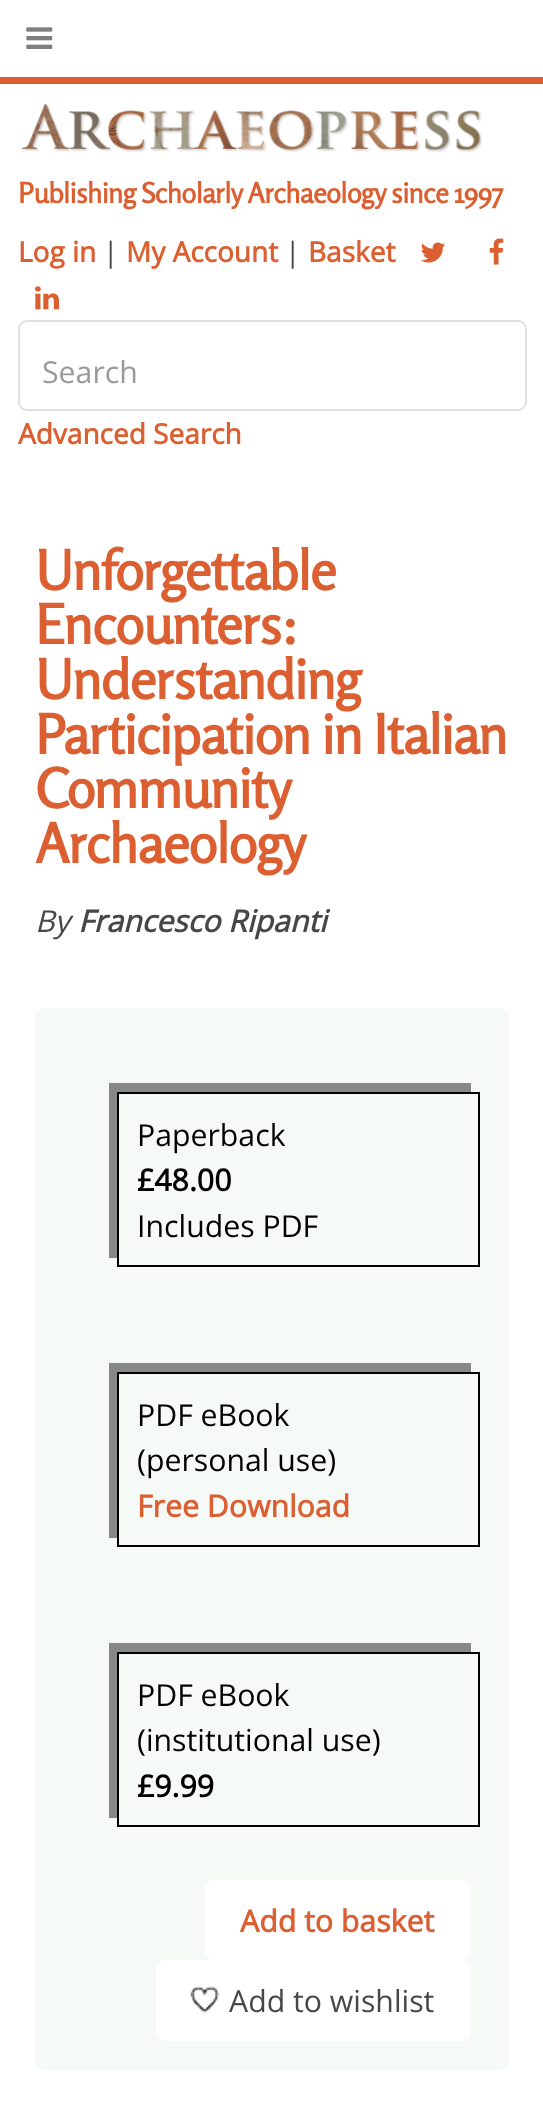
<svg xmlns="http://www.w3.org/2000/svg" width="543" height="2113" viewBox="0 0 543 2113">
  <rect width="100%" height="100%" fill="rgb(255,255,255)"/>
  <rect x="0" y="77" width="543" height="7" fill="rgb(220,95,50)"/>
  <image x="26" y="27" width="27" height="22" href="pic1.png"/>
  <image x="21" y="104" width="461" height="48" href="pic2.png"/>
  <text x="18" y="203" font-family="Rosario" font-size="28" font-weight="bold" letter-spacing="-0.7" fill="rgb(220,95,50)">Publishing Scholarly Archaeology since 1997</text>
  <text x="18" y="262" font-family="Open Sans" font-size="28" font-weight="bold" fill="rgb(220,95,50)">Log in</text>
  <text x="103" y="262" font-family="Open Sans" font-size="28" fill="rgb(71,71,71)">|</text>
  <text x="126" y="262" font-family="Open Sans" font-size="28" font-weight="bold" fill="rgb(220,95,50)">My Account</text>
  <text x="285" y="262" font-family="Open Sans" font-size="28" fill="rgb(71,71,71)">|</text>
  <text x="308" y="262" font-family="Open Sans" font-size="28" font-weight="bold" fill="rgb(220,95,50)">Basket</text>
  <image x="421" y="242" width="25" height="21" href="pic3.png"/>
  <image x="489" y="238" width="15" height="27" href="pic4.png"/>
  <image x="35" y="286" width="24" height="24" href="pic5.png"/>
  <rect x="19" y="321" width="507" height="89" rx="8" fill="none" stroke="rgb(224,224,224)" stroke-width="2"/>
  <text x="42" y="383" font-family="Open Sans" font-size="30.25" fill="rgb(153,153,153)">Search</text>
  <text x="18" y="444" font-family="Open Sans" font-size="28" font-weight="bold" fill="rgb(220,95,50)">Advanced Search</text>
  <g font-family="Rosario" font-size="54.5" font-weight="bold" letter-spacing="-1.4" fill="rgb(220,95,50)">
    <text>
      <tspan x="35" y="590">Unforgettable</tspan>
      <tspan x="35" y="644">Encounters:</tspan>
      <tspan x="35" y="699">Understanding</tspan>
      <tspan x="35" y="754">Participation in Italian</tspan>
      <tspan x="35" y="808">Community</tspan>
      <tspan x="35" y="863">Archaeology</tspan>
    </text>
  </g>
  <text x="35" y="932" font-family="Open Sans" font-size="30.25" font-style="italic" fill="rgb(71,71,71)">By</text>
  <text x="78" y="932" font-family="Open Sans" font-size="30.25" font-weight="bold" font-style="italic" fill="rgb(71,71,71)">Francesco Ripanti</text>
  <rect x="35" y="1008" width="474" height="1062" rx="9" fill="rgb(246,250,247)"/>
  <path d="M109 1083V1258H117V1092H471V1083Z" fill="rgb(136,136,136)"/>
  <rect x="118" y="1093" width="361" height="173" fill="none" stroke="rgb(0,0,0)" stroke-width="2"/>
  <text x="137" y="1146" font-family="Open Sans" font-size="30.25" fill="rgb(0,0,0)">Paperback</text>
  <text x="137" y="1191" font-family="Open Sans" font-size="30.25" font-weight="bold" fill="rgb(0,0,0)">£48.00</text>
  <text x="137" y="1237" font-family="Open Sans" font-size="30.25" fill="rgb(0,0,0)">Includes PDF</text>
  <path d="M109 1363V1538H117V1372H471V1363Z" fill="rgb(136,136,136)"/>
  <rect x="118" y="1373" width="361" height="173" fill="none" stroke="rgb(0,0,0)" stroke-width="2"/>
  <g font-family="Open Sans" font-size="30.25" fill="rgb(0,0,0)">
    <text>
      <tspan x="137" y="1426">PDF eBook</tspan>
      <tspan x="137" y="1471">(personal use)</tspan>
    </text>
  </g>
  <text x="137" y="1517" font-family="Open Sans" font-size="30.25" font-weight="bold" fill="rgb(220,95,50)">Free Download</text>
  <path d="M109 1643V1818H117V1652H471V1643Z" fill="rgb(136,136,136)"/>
  <rect x="118" y="1653" width="361" height="173" fill="none" stroke="rgb(0,0,0)" stroke-width="2"/>
  <g font-family="Open Sans" font-size="30.25" fill="rgb(0,0,0)">
    <text>
      <tspan x="137" y="1706">PDF eBook</tspan>
      <tspan x="137" y="1751">(institutional use)</tspan>
    </text>
  </g>
  <text x="137" y="1797" font-family="Open Sans" font-size="30.25" font-weight="bold" fill="rgb(0,0,0)">£9.99</text>
  <rect x="205" y="1880" width="266" height="80" rx="9" fill="rgb(255,255,255)"/>
  <text x="240" y="1932" font-family="Open Sans" font-size="30.25" font-weight="bold" fill="rgb(220,95,50)">Add to basket</text>
  <rect x="156" y="1960" width="315" height="81" rx="9" fill="rgb(255,255,255)"/>
  <image x="190" y="1986" width="30" height="27" href="pic6.png"/>
  <text x="229" y="2012" font-family="Open Sans" font-size="30.25" fill="rgb(71,71,71)">Add to wishlist</text>
</svg>
